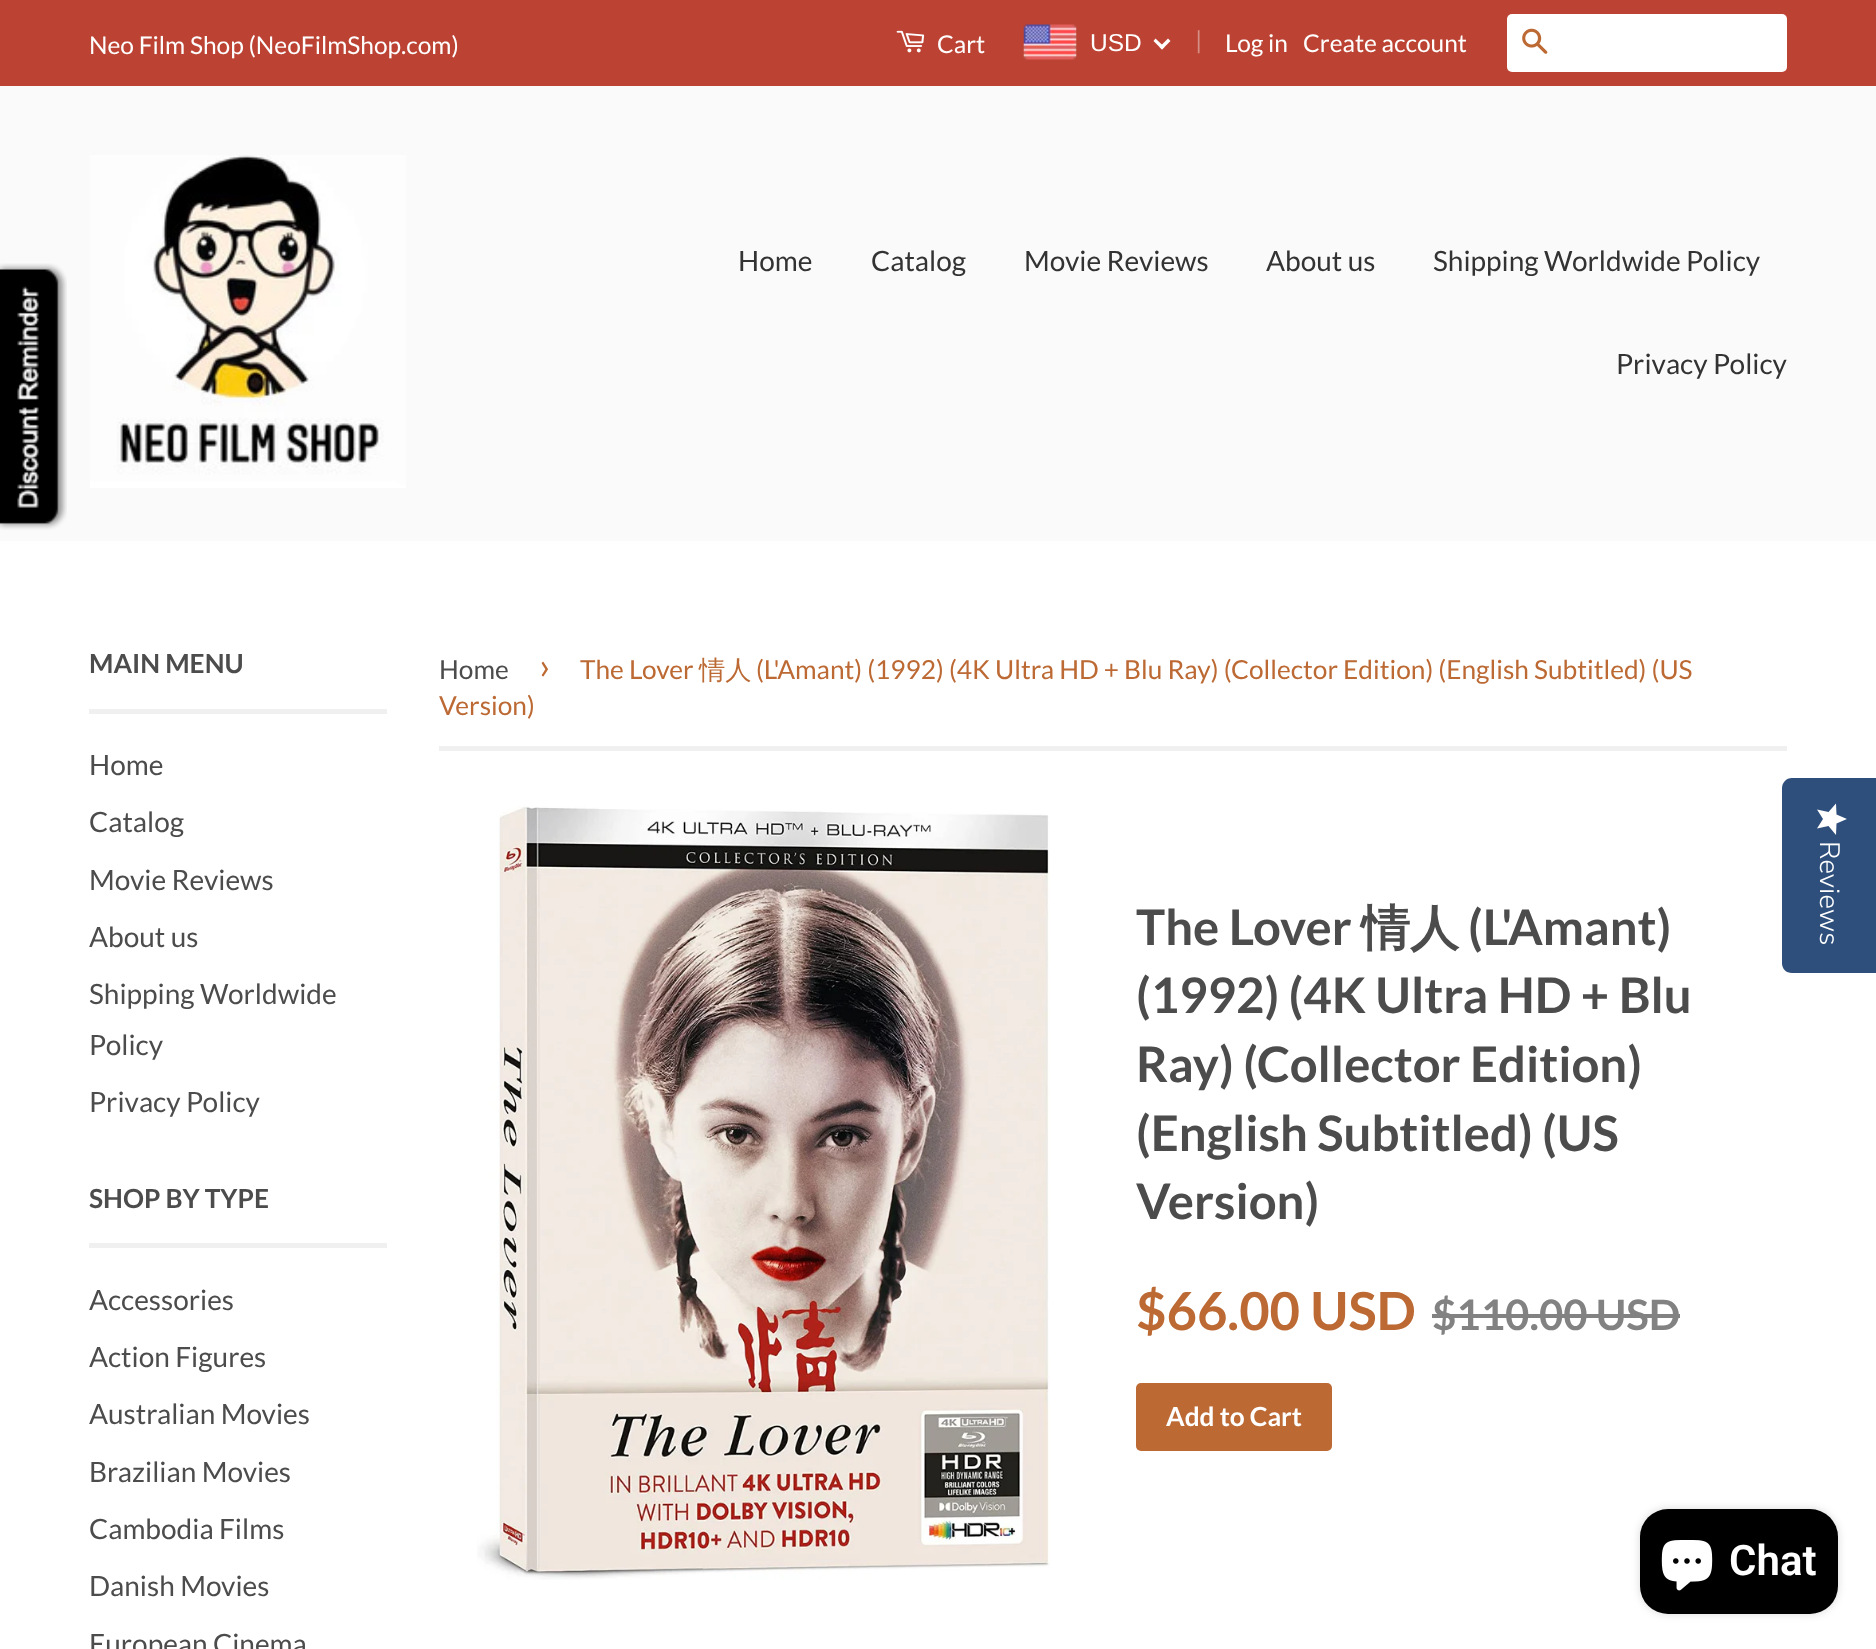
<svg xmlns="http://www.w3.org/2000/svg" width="1876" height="1649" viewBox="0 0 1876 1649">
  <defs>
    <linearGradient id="g1" gradientUnits="userSpaceOnUse" x1="1847" y1="803" x2="1847" y2="835"><stop offset="1" stop-color="rgb(255,255,255)"/><stop offset="1" stop-color="rgb(234,234,234)"/></linearGradient>
  </defs>
  <rect width="100%" height="100%" fill="rgb(255,255,255)"/>
  <rect x="0" y="0" width="1876" height="86" fill="rgb(188,67,51)"/>
  <text x="89" y="54" font-family="Lato" font-size="24.5" fill="rgb(255,255,255)">Neo Film Shop (NeoFilmShop.com)</text>
  <image x="896" y="30" width="29" height="23" href="pic1.png"/>
  <text x="937" y="53" font-family="Lato" font-size="24.5" fill="rgb(255,255,255)">Cart</text>
  <image x="1023" y="24" width="54" height="36" href="pic2.png"/>
  <text x="1090" y="51" font-family="Liberation Sans" font-size="24.5" fill="rgb(255,255,255)">USD</text>
  <path d="M1168 38.5L1170.5 41L1162 49.5L1159.5 47Z" fill="rgb(255,255,255)"/>
  <path d="M1155.5 38.5L1164.5 47L1162 49.5L1153.5 41Z" fill="rgb(255,255,255)"/>
  <text x="1195" y="49" font-family="Lato" font-size="24.5" fill="rgb(215,142,133)">|</text>
  <g font-family="Lato" font-size="24.5" fill="rgb(255,255,255)">
    <text x="1225" y="52">Log in</text>
    <text x="1303" y="52">Create account</text>
  </g>
  <rect x="1507" y="14" width="280" height="58" rx="5" fill="rgb(255,255,255)"/>
  <image x="1522" y="28" width="26" height="26" href="pic3.png"/>
  <rect x="0" y="86" width="1876" height="455" fill="rgb(250,250,250)"/>
  <image x="0" y="263" width="67" height="267" href="pic4.png"/>
  <image x="90" y="155" width="316" height="333" href="pic5.png"/>
  <g font-family="Lato" font-size="28" fill="rgb(51,51,51)">
    <text x="738" y="271">Home</text>
    <text x="871" y="271">Catalog</text>
    <text x="1024" y="271">Movie Reviews</text>
    <text x="1266" y="271">About us</text>
    <text x="1433" y="271">Shipping Worldwide Policy</text>
    <text x="1616" y="374">Privacy Policy</text>
  </g>
  <rect x="89" y="709" width="298" height="5" fill="rgb(240,240,240)"/>
  <text x="89" y="673" font-family="Lato" font-size="26.25" font-weight="bold" fill="rgb(76,76,76)">MAIN MENU</text>
  <g font-family="Lato" font-size="28" fill="rgb(76,76,76)">
    <text x="89" y="775">Home</text>
    <text x="89" y="832">Catalog</text>
    <text x="89" y="890">Movie Reviews</text>
    <text x="89" y="947">About us</text>
    <text>
      <tspan x="89" y="1004">Shipping Worldwide</tspan>
      <tspan x="89" y="1055">Policy</tspan>
    </text>
    <text x="89" y="1112">Privacy Policy</text>
  </g>
  <rect x="89" y="1243" width="298" height="5" fill="rgb(240,240,240)"/>
  <text x="89" y="1208" font-family="Lato" font-size="26.25" font-weight="bold" fill="rgb(76,76,76)">SHOP BY TYPE</text>
  <g font-family="Lato" font-size="28" fill="rgb(76,76,76)">
    <text x="89" y="1310">Accessories</text>
    <text x="89" y="1367">Action Figures</text>
    <text x="89" y="1424">Australian Movies</text>
    <text x="89" y="1482">Brazilian Movies</text>
    <text x="89" y="1539">Cambodia Films</text>
    <text x="89" y="1596">Danish Movies</text>
    <text x="89" y="1654">European Cinema</text>
  </g>
  <rect x="439" y="746" width="1348" height="5" fill="rgb(240,240,240)"/>
  <text x="439" y="679" font-family="Lato" font-size="26.25" fill="rgb(76,76,76)">Home</text>
  <text x="539" y="679" font-family="Lato" font-size="37" fill="rgb(188,105,51)">›</text>
  <text x="580" y="679" font-family="Lato" font-size="26.25" fill="rgb(188,105,51)">The Lover</text>
  <text x="699" y="679" font-family="WenQuanYi Zen Hei" font-size="26.25" font-weight="500" fill="rgb(188,105,51)">情人</text>
  <g font-family="Lato" font-size="26.25" fill="rgb(188,105,51)">
    <text x="756" y="679">(L'Amant) (1992) (4K Ultra HD + Blu Ray) (Collector Edition) (English Subtitled) (US</text>
    <text x="439" y="715">Version)</text>
  </g>
  <image x="477" y="806" width="573" height="774" href="pic6.png"/>
  <text x="1136" y="945" font-family="Lato" font-size="49" font-weight="bold" fill="rgb(76,76,76)">The Lover</text>
  <text x="1361" y="945" font-family="WenQuanYi Zen Hei" font-size="49" font-weight="bold" fill="rgb(76,76,76)">情人</text>
  <g font-family="Lato" font-size="49" font-weight="bold" fill="rgb(76,76,76)">
    <text x="1468" y="945">(L'Amant)</text>
    <text>
      <tspan x="1136" y="1013">(1992) (4K Ultra HD + Blu</tspan>
      <tspan x="1136" y="1082">Ray) (Collector Edition)</tspan>
      <tspan x="1136" y="1151">(English Subtitled) (US</tspan>
      <tspan x="1136" y="1219">Version)</tspan>
    </text>
  </g>
  <text x="1136" y="1330" font-family="Lato" font-size="52.5" font-weight="bold" fill="rgb(188,105,51)">$66.00 USD</text>
  <text x="1432" y="1330" font-family="Lato" font-size="42" font-weight="bold" fill="rgb(130,130,130)">$110.00 USD</text>
  <rect x="1432" y="1314" width="248" height="4" fill="rgb(130,130,130)"/>
  <rect x="1136" y="1383" width="196" height="68" rx="5" fill="rgb(188,105,51)"/>
  <text x="1166" y="1426" font-family="Lato" font-size="26.25" font-weight="bold" fill="rgb(255,255,255)">Add to Cart</text>
  <path d="M1876 778V973H1792C1786 973 1782 969 1782 963V788C1782 783 1786 778 1792 778Z" fill="rgb(46,79,124)"/>
  <path d="M1823 819L1817 828.5L1828.5 826L1836 835L1836.5 823.5L1847 819L1836.5 814.5L1836 803.5L1828.5 812L1817 809.5Z" fill="url(#g1)"/>
  <text x="1820" y="841" transform="rotate(90 1820 841)" font-family="Nunito Sans" font-size="28" font-weight="300" fill="rgb(255,255,255)">Reviews</text>
  <rect x="1640" y="1509" width="198" height="105" rx="28" fill="rgba(0,0,0,0.15)" filter="blur(4.5px)"/>
  <rect x="1640" y="1509" width="198" height="105" rx="28" fill="rgb(0,0,0)"/>
  <image x="1661" y="1540" width="52" height="51" href="pic7.png"/>
  <text x="1729" y="1575" font-family="Roboto" font-size="42" font-weight="600" fill="rgb(255,255,255)">Chat</text>
</svg>
